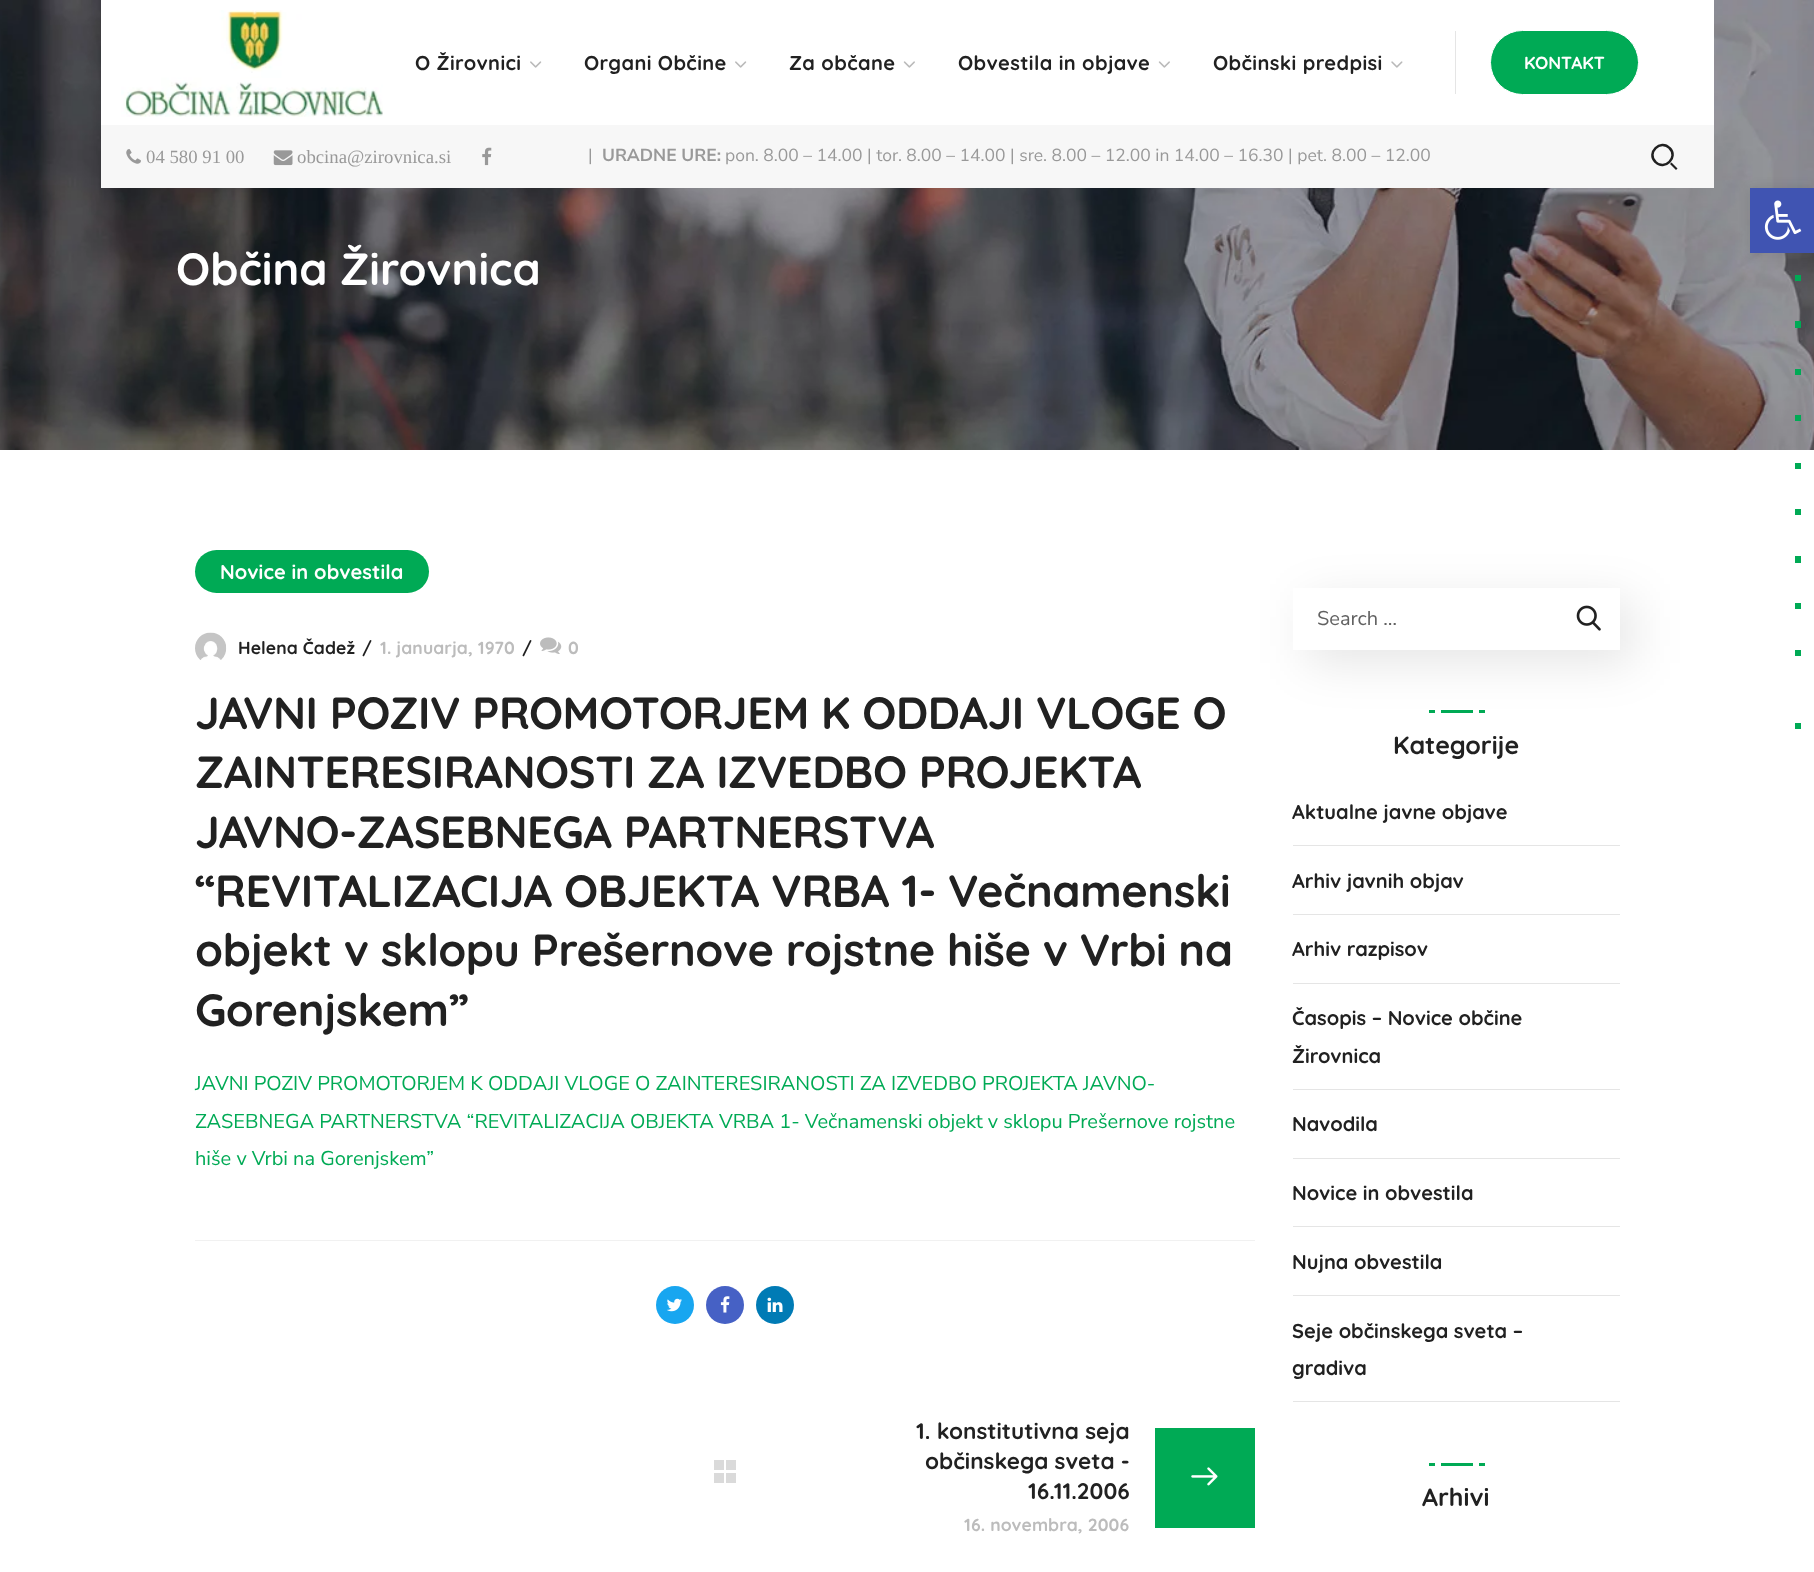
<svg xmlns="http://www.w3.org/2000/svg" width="1814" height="1572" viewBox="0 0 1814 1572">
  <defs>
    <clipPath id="clip1"><path d="M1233 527H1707V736H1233ZM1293 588H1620V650H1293Z" clip-rule="evenodd"/></clipPath>
  </defs>
  <rect width="100%" height="100%" fill="rgb(255,255,255)"/>
  <image x="0" y="0" width="1814" height="450" href="pic8.png"/>
  <rect x="101" y="0" width="1613" height="125" fill="rgb(255,255,255)"/>
  <image x="121" y="10" width="262" height="107" href="pic1.png"/>
  <text x="415" y="70" font-family="Quicksand" font-size="20" font-weight="bold" letter-spacing="0.4" fill="rgb(33,33,33)">O Žirovnici</text>
  <image x="530" y="61" width="12" height="7" href="pic2.png"/>
  <text x="584" y="70" font-family="Quicksand" font-size="20" font-weight="bold" letter-spacing="0.4" fill="rgb(33,33,33)">Organi Občine</text>
  <image x="735" y="61" width="12" height="7" href="pic2.png"/>
  <text x="789" y="70" font-family="Quicksand" font-size="20" font-weight="bold" letter-spacing="0.4" fill="rgb(33,33,33)">Za občane</text>
  <image x="903" y="61" width="12" height="7" href="pic3.png"/>
  <text x="958" y="70" font-family="Quicksand" font-size="20" font-weight="bold" letter-spacing="0.4" fill="rgb(33,33,33)">Obvestila in objave</text>
  <image x="1158" y="61" width="12" height="7" href="pic3.png"/>
  <text x="1213" y="70" font-family="Quicksand" font-size="20" font-weight="bold" letter-spacing="0.4" fill="rgb(33,33,33)">Občinski predpisi</text>
  <image x="1391" y="61" width="12" height="7" href="pic4.png"/>
  <rect x="1455" y="31" width="1" height="63" fill="rgb(229,229,229)"/>
  <rect x="1490.5" y="30.5" width="148" height="64" rx="32" fill="rgb(0,170,85)" stroke="rgb(255,255,255)"/>
  <text x="1524" y="69" font-family="Quicksand" font-size="17.5" font-weight="bold" fill="rgb(255,255,255)">KONTAKT</text>
  <rect x="101" y="125" width="1613" height="63" fill="rgb(247,247,247)"/>
  <image x="126" y="149" width="15" height="15" href="pic5.png"/>
  <text x="146" y="163" font-family="Liberation Serif" font-size="18.75" fill="rgb(153,153,153)">04 580 91 00</text>
  <image x="273" y="150" width="20" height="16" href="pic6.png"/>
  <text x="297" y="163" font-family="Liberation Serif" font-size="18.75" fill="rgb(153,153,153)">obcina@zirovnica.si</text>
  <image x="482" y="147" width="10" height="19" href="pic7.png"/>
  <text x="588" y="161" font-family="Nunito Sans" font-size="17.5" fill="rgb(153,153,153)">|</text>
  <text x="602" y="161" font-family="Nunito Sans" font-size="17.5" font-weight="bold" fill="rgb(153,153,153)">URADNE URE:</text>
  <text x="725" y="161" font-family="Nunito Sans" font-size="17.5" fill="rgb(153,153,153)">pon. 8.00 – 14.00 | tor. 8.00 – 14.00 | sre. 8.00 – 12.00 in 14.00 – 16.30 | pet. 8.00 – 12.00</text>
  <path d="M1669.5 148C1679 157 1664.5 171.5 1655.5 162C1646 153 1660.5 138.5 1669.5 148Z" fill="none" stroke="rgb(33,33,33)" stroke-width="2.5"/>
  <path d="M1670 164L1671.5 162.5L1677.5 168.5L1676 170Z" fill="rgb(33,33,33)"/>
  <text x="176" y="285" font-family="Quicksand" font-size="45" font-weight="bold" fill="rgb(255,255,255)">Občina Žirovnica</text>
  <rect x="1750" y="188" width="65" height="65" fill="rgba(0,0,0,0.1)" filter="blur(6px)"/>
  <rect x="1750" y="188" width="64" height="65" fill="rgb(64,84,178)"/>
  <image x="1764" y="200" width="38" height="40" href="pic9.png"/>
  <rect x="1795" y="275" width="6" height="6" fill="rgb(0,170,85)"/>
  <rect x="1795" y="321" width="6" height="7" fill="rgb(0,170,85)"/>
  <rect x="1795" y="369" width="6" height="6" fill="rgb(0,170,85)"/>
  <rect x="1795" y="415" width="6" height="6" fill="rgb(0,170,85)"/>
  <rect x="1795" y="463" width="6" height="6" fill="rgb(0,170,85)"/>
  <rect x="1795" y="509" width="6" height="6" fill="rgb(0,170,85)"/>
  <rect x="1795" y="556" width="6" height="7" fill="rgb(0,170,85)"/>
  <rect x="1795" y="603" width="6" height="6" fill="rgb(0,170,85)"/>
  <rect x="1795" y="650" width="6" height="6" fill="rgb(0,170,85)"/>
  <rect x="1795" y="723" width="6" height="6" fill="rgb(0,170,85)"/>
  <rect x="195" y="550" width="234" height="43" rx="21.5" fill="rgb(0,170,85)"/>
  <text x="220" y="579" font-family="Quicksand" font-size="20" font-weight="bold" letter-spacing="0.1" fill="rgb(255,255,255)">Novice in obvestila</text>
  <image x="195" y="632" width="32" height="28" href="pic10.png"/>
  <g font-family="Quicksand" font-size="17.5" font-weight="bold" letter-spacing="0.1" fill="rgb(33,33,33)">
    <text x="238" y="654">Helena Čadež</text>
    <text x="362" y="654">/</text>
  </g>
  <text x="380" y="654" font-family="Quicksand" font-size="17.5" font-weight="bold" letter-spacing="0.1" fill="rgb(188,188,188)">1. januarja, 1970</text>
  <text x="522" y="654" font-family="Quicksand" font-size="17.5" font-weight="bold" letter-spacing="0.1" fill="rgb(33,33,33)">/</text>
  <image x="540" y="637" width="22" height="17" href="pic11.png"/>
  <text x="568" y="654" font-family="Quicksand" font-size="17.5" font-weight="bold" letter-spacing="0.1" fill="rgb(188,188,188)">0</text>
  <g font-family="Quicksand" font-size="45" font-weight="bold" letter-spacing="-0.45" fill="rgb(33,33,33)">
    <text>
      <tspan x="195" y="729">JAVNI POZIV PROMOTORJEM K ODDAJI VLOGE O</tspan>
      <tspan x="195" y="788">ZAINTERESIRANOSTI ZA IZVEDBO PROJEKTA</tspan>
      <tspan x="195" y="848">JAVNO-ZASEBNEGA PARTNERSTVA</tspan>
      <tspan x="195" y="907">“REVITALIZACIJA OBJEKTA VRBA 1- Večnamenski</tspan>
      <tspan x="195" y="966">objekt v sklopu Prešernove rojstne hiše v Vrbi na</tspan>
      <tspan x="195" y="1026">Gorenjskem”</tspan>
    </text>
  </g>
  <g font-family="Nunito Sans" font-size="20" fill="rgb(0,170,85)">
    <text>
      <tspan x="195" y="1090">JAVNI POZIV PROMOTORJEM K ODDAJI VLOGE O ZAINTERESIRANOSTI ZA IZVEDBO PROJEKTA JAVNO-</tspan>
      <tspan x="195" y="1128">ZASEBNEGA PARTNERSTVA “REVITALIZACIJA OBJEKTA VRBA 1- Večnamenski objekt v sklopu Prešernove rojstne</tspan>
      <tspan x="195" y="1165">hiše v Vrbi na Gorenjskem”</tspan>
    </text>
  </g>
  <rect x="195" y="1240" width="1060" height="1" fill="rgb(241,241,241)"/>
  <circle cx="675" cy="1305" r="19" fill="rgb(24,166,240)"/>
  <image x="667" y="1298" width="15" height="14" href="pic12.png"/>
  <circle cx="725" cy="1305" r="19" fill="rgb(70,97,197)"/>
  <image x="720" y="1296" width="10" height="17" href="pic13.png"/>
  <circle cx="775" cy="1305" r="19" fill="rgb(0,123,181)"/>
  <image x="767" y="1297" width="16" height="15" href="pic14.png"/>
  <rect x="714" y="1460" width="10" height="10" fill="rgb(218,218,218)"/>
  <rect x="726" y="1460" width="10" height="10" fill="rgb(218,218,218)"/>
  <rect x="714" y="1473" width="10" height="10" fill="rgb(218,218,218)"/>
  <rect x="726" y="1473" width="10" height="10" fill="rgb(218,218,218)"/>
  <g font-family="Quicksand" font-size="22.5" font-weight="bold" fill="rgb(33,33,33)">
    <text x="916" y="1439">1. konstitutivna seja</text>
    <text x="925" y="1469">občinskega sveta -</text>
    <text x="1028" y="1499">16.11.2006</text>
  </g>
  <text x="964" y="1531" font-family="Quicksand" font-size="17.5" font-weight="bold" letter-spacing="0.1" fill="rgb(188,188,188)">16. novembra, 2006</text>
  <rect x="1155" y="1428" width="100" height="100" fill="rgb(0,170,85)"/>
  <image x="1191" y="1467" width="27" height="19" href="pic15.png"/>
  <g clip-path="url(#clip1)">
    <rect x="1306" y="600" width="328" height="63" fill="rgba(0,0,0,0.1)" filter="blur(24px)"/>
  </g>
  <text x="1317" y="625" font-family="Nunito Sans" font-size="20" fill="rgb(97,97,97)">Search …</text>
  <image x="1576" y="605" width="25" height="26" href="pic16.png"/>
  <rect x="1479" y="710" width="6" height="3" fill="rgb(0,170,85)"/>
  <rect x="1441" y="710" width="32" height="3" fill="rgb(0,170,85)"/>
  <rect x="1429" y="710" width="6" height="3" fill="rgb(0,170,85)"/>
  <text x="1393" y="754" font-family="Quicksand" font-size="25" font-weight="bold" fill="rgb(33,33,33)">Kategorije</text>
  <rect x="1293" y="845" width="327" height="1" fill="rgb(229,229,229)"/>
  <text x="1292" y="819" font-family="Quicksand" font-size="20" font-weight="bold" fill="rgb(33,33,33)">Aktualne javne objave</text>
  <rect x="1293" y="914" width="327" height="1" fill="rgb(229,229,229)"/>
  <text x="1292" y="888" font-family="Quicksand" font-size="20" font-weight="bold" fill="rgb(33,33,33)">Arhiv javnih objav</text>
  <rect x="1293" y="983" width="327" height="1" fill="rgb(229,229,229)"/>
  <text x="1292" y="956" font-family="Quicksand" font-size="20" font-weight="bold" fill="rgb(33,33,33)">Arhiv razpisov</text>
  <rect x="1293" y="1089" width="327" height="1" fill="rgb(229,229,229)"/>
  <g font-family="Quicksand" font-size="20" font-weight="bold" fill="rgb(33,33,33)">
    <text>
      <tspan x="1292" y="1025">Časopis – Novice občine</tspan>
      <tspan x="1292" y="1063">Žirovnica</tspan>
    </text>
  </g>
  <rect x="1293" y="1158" width="327" height="1" fill="rgb(229,229,229)"/>
  <text x="1292" y="1131" font-family="Quicksand" font-size="20" font-weight="bold" fill="rgb(33,33,33)">Navodila</text>
  <rect x="1293" y="1226" width="327" height="1" fill="rgb(229,229,229)"/>
  <text x="1292" y="1200" font-family="Quicksand" font-size="20" font-weight="bold" fill="rgb(33,33,33)">Novice in obvestila</text>
  <rect x="1293" y="1295" width="327" height="1" fill="rgb(229,229,229)"/>
  <text x="1292" y="1269" font-family="Quicksand" font-size="20" font-weight="bold" fill="rgb(33,33,33)">Nujna obvestila</text>
  <rect x="1293" y="1401" width="327" height="1" fill="rgb(229,229,229)"/>
  <g font-family="Quicksand" font-size="20" font-weight="bold" fill="rgb(33,33,33)">
    <text>
      <tspan x="1292" y="1338">Seje občinskega sveta –</tspan>
      <tspan x="1292" y="1375">gradiva</tspan>
    </text>
  </g>
  <rect x="1479" y="1463" width="6" height="3" fill="rgb(0,170,85)"/>
  <rect x="1441" y="1463" width="32" height="3" fill="rgb(0,170,85)"/>
  <rect x="1429" y="1463" width="6" height="3" fill="rgb(0,170,85)"/>
  <text x="1422" y="1506" font-family="Quicksand" font-size="25" font-weight="bold" fill="rgb(33,33,33)">Arhivi</text>
</svg>
